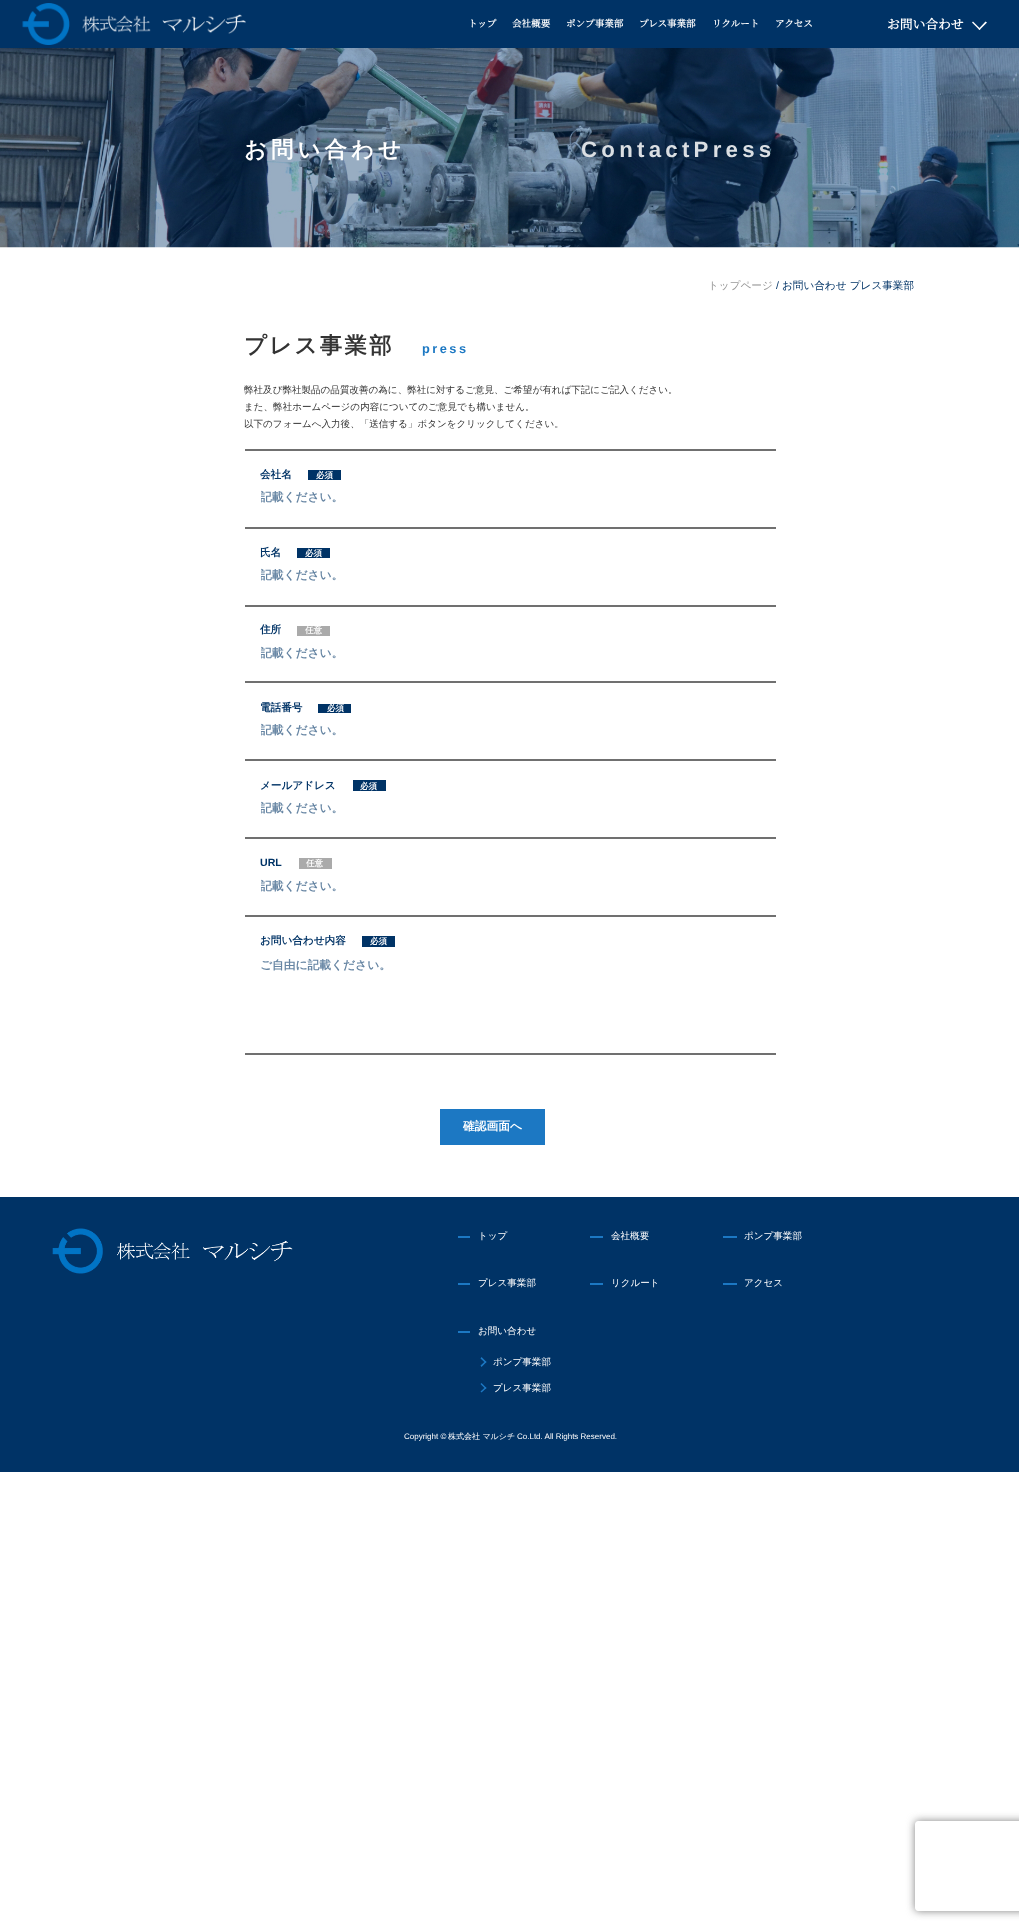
<svg xmlns="http://www.w3.org/2000/svg" width="1019" height="1931" viewBox="0 0 1019 1931">
  <defs>
    <clipPath id="clip1"><rect x="261" y="489" width="498" height="17"/></clipPath>
    <clipPath id="clip2"><rect x="261" y="567" width="498" height="17"/></clipPath>
    <clipPath id="clip3"><rect x="261" y="645" width="498" height="17"/></clipPath>
    <clipPath id="clip4"><rect x="261" y="723" width="498" height="17"/></clipPath>
    <clipPath id="clip5"><rect x="261" y="800" width="498" height="16"/></clipPath>
    <clipPath id="clip6"><rect x="261" y="878" width="498" height="16"/></clipPath>
    <clipPath id="clip7"><path d="M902 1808H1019V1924H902ZM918 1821H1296C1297.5 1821 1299 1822.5 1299 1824V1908C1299 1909.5 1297.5 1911 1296 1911H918C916.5 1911 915 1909.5 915 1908V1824C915 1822.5 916.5 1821 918 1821Z" clip-rule="evenodd"/></clipPath>
  </defs>
  <rect width="100%" height="100%" fill="rgb(255,255,255)"/>
  <rect x="0" y="0" width="1019" height="48" fill="rgb(0,51,102)"/>
  <image x="22" y="3" width="224" height="42" href="pic1.png"/>
  <g font-family="Noto Serif JP" font-size="9.55" font-weight="bold" fill="rgb(255,255,255)">
    <text x="468" y="27">トップ</text>
    <text x="512" y="27">会社概要</text>
    <text x="566" y="27">ポンプ事業部</text>
    <text x="639" y="27">プレス事業部</text>
    <text x="712" y="27">リクルート</text>
    <text x="775" y="27">アクセス</text>
  </g>
  <text x="887" y="29" font-family="Noto Serif JP" font-size="12.75" font-weight="bold" fill="rgb(255,255,255)">お問い合わせ</text>
  <path d="M987 22.5L979.5 30L978.5 29L985.5 21.5Z" fill="rgb(255,255,255)"/>
  <path d="M980.5 29L979.5 30L972 22.5L973 21.5Z" fill="rgb(255,255,255)"/>
  <image x="0" y="48" width="1019" height="200" href="pic2.png"/>
  <text x="244" y="157" font-family="WenQuanYi Zen Hei" font-size="22.25" font-weight="bold" letter-spacing="4.25" fill="rgb(255,255,255)">お問い合わせ</text>
  <text x="581" y="157" font-family="Liberation Sans" font-size="22.25" font-weight="bold" letter-spacing="4.25" fill="rgb(219,223,227)">ContactPress</text>
  <text x="708" y="289" font-family="WenQuanYi Zen Hei" font-size="10.6" font-weight="500" fill="rgb(153,153,153)">トップページ</text>
  <text x="776" y="289" font-family="Liberation Sans" font-size="10.6" fill="rgb(0,51,102)">/</text>
  <text x="782" y="289" font-family="WenQuanYi Zen Hei" font-size="10.6" font-weight="500" fill="rgb(0,51,102)">お問い合わせ プレス事業部</text>
  <text x="244" y="353" font-family="WenQuanYi Zen Hei" font-size="22.25" font-weight="bold" letter-spacing="2.5" fill="rgb(51,51,51)">プレス事業部</text>
  <text x="422" y="353" font-family="Liberation Sans" font-size="12.75" font-weight="bold" letter-spacing="2.5" fill="rgb(28,120,195)">press</text>
  <g font-family="WenQuanYi Zen Hei" font-size="9.55" font-weight="500" fill="rgb(51,51,51)">
    <text>
      <tspan x="244" y="393">弊社及び弊社製品の品質改善の為に、弊社に対するご意見、ご希望が有れば下記にご記入ください。</tspan>
      <tspan x="244" y="410">また、弊社ホームページの内容についてのご意見でも構いません。</tspan>
      <tspan x="244" y="427">以下のフォームへ入力後、「送信する」ボタンをクリックしてください。</tspan>
    </text>
  </g>
  <rect x="245" y="449" width="531" height="2" fill="rgb(112,112,112)"/>
  <text x="260" y="478" font-family="WenQuanYi Zen Hei" font-size="10.6" font-weight="bold" fill="rgb(0,51,102)">会社名</text>
  <rect x="308" y="470" width="33" height="10" fill="rgb(0,51,102)"/>
  <text x="316" y="478" font-family="WenQuanYi Zen Hei" font-size="8.5" font-weight="bold" fill="rgb(255,255,255)">必須</text>
  <rect x="245" y="527" width="531" height="2" fill="rgb(112,112,112)"/>
  <g clip-path="url(#clip1)">
    <text x="260" y="501" font-family="WenQuanYi Zen Hei" font-size="11.75" font-weight="bold" fill="rgb(102,133,163)">記載ください。</text>
  </g>
  <text x="260" y="556" font-family="WenQuanYi Zen Hei" font-size="10.6" font-weight="bold" fill="rgb(0,51,102)">氏名</text>
  <rect x="297" y="548" width="33" height="10" fill="rgb(0,51,102)"/>
  <text x="305" y="556" font-family="WenQuanYi Zen Hei" font-size="8.5" font-weight="bold" fill="rgb(255,255,255)">必須</text>
  <rect x="245" y="605" width="531" height="2" fill="rgb(112,112,112)"/>
  <g clip-path="url(#clip2)">
    <text x="260" y="579" font-family="WenQuanYi Zen Hei" font-size="11.75" font-weight="bold" fill="rgb(102,133,163)">記載ください。</text>
  </g>
  <text x="260" y="633" font-family="WenQuanYi Zen Hei" font-size="10.6" font-weight="bold" fill="rgb(0,51,102)">住所</text>
  <rect x="297" y="626" width="33" height="10" fill="rgb(170,170,170)"/>
  <text x="305" y="633" font-family="WenQuanYi Zen Hei" font-size="8.5" font-weight="bold" fill="rgb(255,255,255)">任意</text>
  <rect x="245" y="681" width="531" height="2" fill="rgb(112,112,112)"/>
  <g clip-path="url(#clip3)">
    <text x="260" y="657" font-family="WenQuanYi Zen Hei" font-size="11.75" font-weight="bold" fill="rgb(102,133,163)">記載ください。</text>
  </g>
  <text x="260" y="711" font-family="WenQuanYi Zen Hei" font-size="10.6" font-weight="bold" fill="rgb(0,51,102)">電話番号</text>
  <rect x="318" y="704" width="33" height="9" fill="rgb(0,51,102)"/>
  <text x="327" y="711" font-family="WenQuanYi Zen Hei" font-size="8.5" font-weight="bold" fill="rgb(255,255,255)">必須</text>
  <rect x="245" y="759" width="531" height="2" fill="rgb(112,112,112)"/>
  <g clip-path="url(#clip4)">
    <text x="260" y="734" font-family="WenQuanYi Zen Hei" font-size="11.75" font-weight="bold" fill="rgb(102,133,163)">記載ください。</text>
  </g>
  <text x="260" y="789" font-family="WenQuanYi Zen Hei" font-size="10.6" font-weight="bold" fill="rgb(0,51,102)">メールアドレス</text>
  <rect x="353" y="780" width="33" height="11" fill="rgb(0,51,102)"/>
  <text x="360" y="789" font-family="WenQuanYi Zen Hei" font-size="8.5" font-weight="bold" fill="rgb(255,255,255)">必須</text>
  <rect x="245" y="837" width="531" height="2" fill="rgb(112,112,112)"/>
  <g clip-path="url(#clip5)">
    <text x="260" y="812" font-family="WenQuanYi Zen Hei" font-size="11.75" font-weight="bold" fill="rgb(102,133,163)">記載ください。</text>
  </g>
  <text x="260" y="866" font-family="Liberation Sans" font-size="10.6" font-weight="bold" fill="rgb(0,51,102)">URL</text>
  <rect x="299" y="858" width="33" height="11" fill="rgb(170,170,170)"/>
  <text x="306" y="866" font-family="WenQuanYi Zen Hei" font-size="8.5" font-weight="bold" fill="rgb(255,255,255)">任意</text>
  <rect x="245" y="915" width="531" height="2" fill="rgb(112,112,112)"/>
  <g clip-path="url(#clip6)">
    <text x="260" y="890" font-family="WenQuanYi Zen Hei" font-size="11.75" font-weight="bold" fill="rgb(102,133,163)">記載ください。</text>
  </g>
  <text x="260" y="944" font-family="WenQuanYi Zen Hei" font-size="10.6" font-weight="bold" fill="rgb(0,51,102)">お問い合わせ内容</text>
  <rect x="362" y="936" width="33" height="11" fill="rgb(0,51,102)"/>
  <text x="370" y="944" font-family="WenQuanYi Zen Hei" font-size="8.5" font-weight="bold" fill="rgb(255,255,255)">必須</text>
  <rect x="245" y="1053" width="531" height="2" fill="rgb(112,112,112)"/>
  <text x="260" y="969" font-family="WenQuanYi Zen Hei" font-size="11.75" font-weight="bold" fill="rgb(102,133,163)">ご自由に記載ください。</text>
  <rect x="440" y="1109" width="105" height="36" fill="rgb(28,120,195)"/>
  <text x="463" y="1130" font-family="WenQuanYi Zen Hei" font-size="11.75" font-weight="bold" fill="rgb(255,255,255)">確認画面へ</text>
  <rect x="0" y="1197" width="1019" height="275" fill="rgb(0,51,102)"/>
  <image x="52" y="1228" width="241" height="46" href="pic3.png"/>
  <rect x="458" y="1236" width="12" height="2" fill="rgb(28,120,195)"/>
  <text x="478" y="1239" font-family="WenQuanYi Zen Hei" font-size="9.55" font-weight="500" fill="rgb(255,255,255)">トップ</text>
  <rect x="590" y="1236" width="13" height="2" fill="rgb(28,120,195)"/>
  <text x="611" y="1239" font-family="WenQuanYi Zen Hei" font-size="9.55" font-weight="500" fill="rgb(255,255,255)">会社概要</text>
  <rect x="723" y="1236" width="14" height="2" fill="rgb(28,120,195)"/>
  <text x="744" y="1239" font-family="WenQuanYi Zen Hei" font-size="9.55" font-weight="500" fill="rgb(255,255,255)">ポンプ事業部</text>
  <rect x="458" y="1283" width="12" height="2" fill="rgb(28,120,195)"/>
  <text x="478" y="1286" font-family="WenQuanYi Zen Hei" font-size="9.55" font-weight="500" fill="rgb(255,255,255)">プレス事業部</text>
  <rect x="590" y="1283" width="13" height="2" fill="rgb(28,120,195)"/>
  <text x="611" y="1286" font-family="WenQuanYi Zen Hei" font-size="9.55" font-weight="500" fill="rgb(255,255,255)">リクルート</text>
  <rect x="723" y="1283" width="14" height="2" fill="rgb(28,120,195)"/>
  <text x="744" y="1286" font-family="WenQuanYi Zen Hei" font-size="9.55" font-weight="500" fill="rgb(255,255,255)">アクセス</text>
  <rect x="458" y="1331" width="12" height="2" fill="rgb(28,120,195)"/>
  <text x="478" y="1334" font-family="WenQuanYi Zen Hei" font-size="9.55" font-weight="500" fill="rgb(255,255,255)">お問い合わせ</text>
  <path d="M481.5 1357L486.5 1362L485.5 1363L480.5 1358.5Z" fill="rgb(28,120,195)"/>
  <path d="M485.5 1361L486.5 1362L481.5 1367L480.5 1365.5ZM481.5 1383L486.5 1388L485.5 1389L480.5 1384Z" fill="rgb(28,120,195)"/>
  <text x="493" y="1365" font-family="WenQuanYi Zen Hei" font-size="9.55" font-weight="500" fill="rgb(255,255,255)">ポンプ事業部</text>
  <path d="M485.5 1387L486.5 1388L481.5 1392.5L480.5 1391.5Z" fill="rgb(28,120,195)"/>
  <text x="493" y="1391" font-family="WenQuanYi Zen Hei" font-size="9.55" font-weight="500" fill="rgb(255,255,255)">プレス事業部</text>
  <text x="404" y="1439" font-family="Liberation Sans" font-size="8" fill="rgb(255,255,255)">Copyright ©</text>
  <text x="448" y="1439" font-family="WenQuanYi Zen Hei" font-size="8" font-weight="500" fill="rgb(255,255,255)">株式会社 マルシチ</text>
  <text x="517" y="1439" font-family="Liberation Sans" font-size="8" fill="rgb(255,255,255)">Co.Ltd. All Rights Reserved.</text>
  <g clip-path="url(#clip7)">
    <rect x="915" y="1821" width="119" height="90" rx="3" fill="rgb(128,128,128)" filter="blur(4px)"/>
  </g>
</svg>
